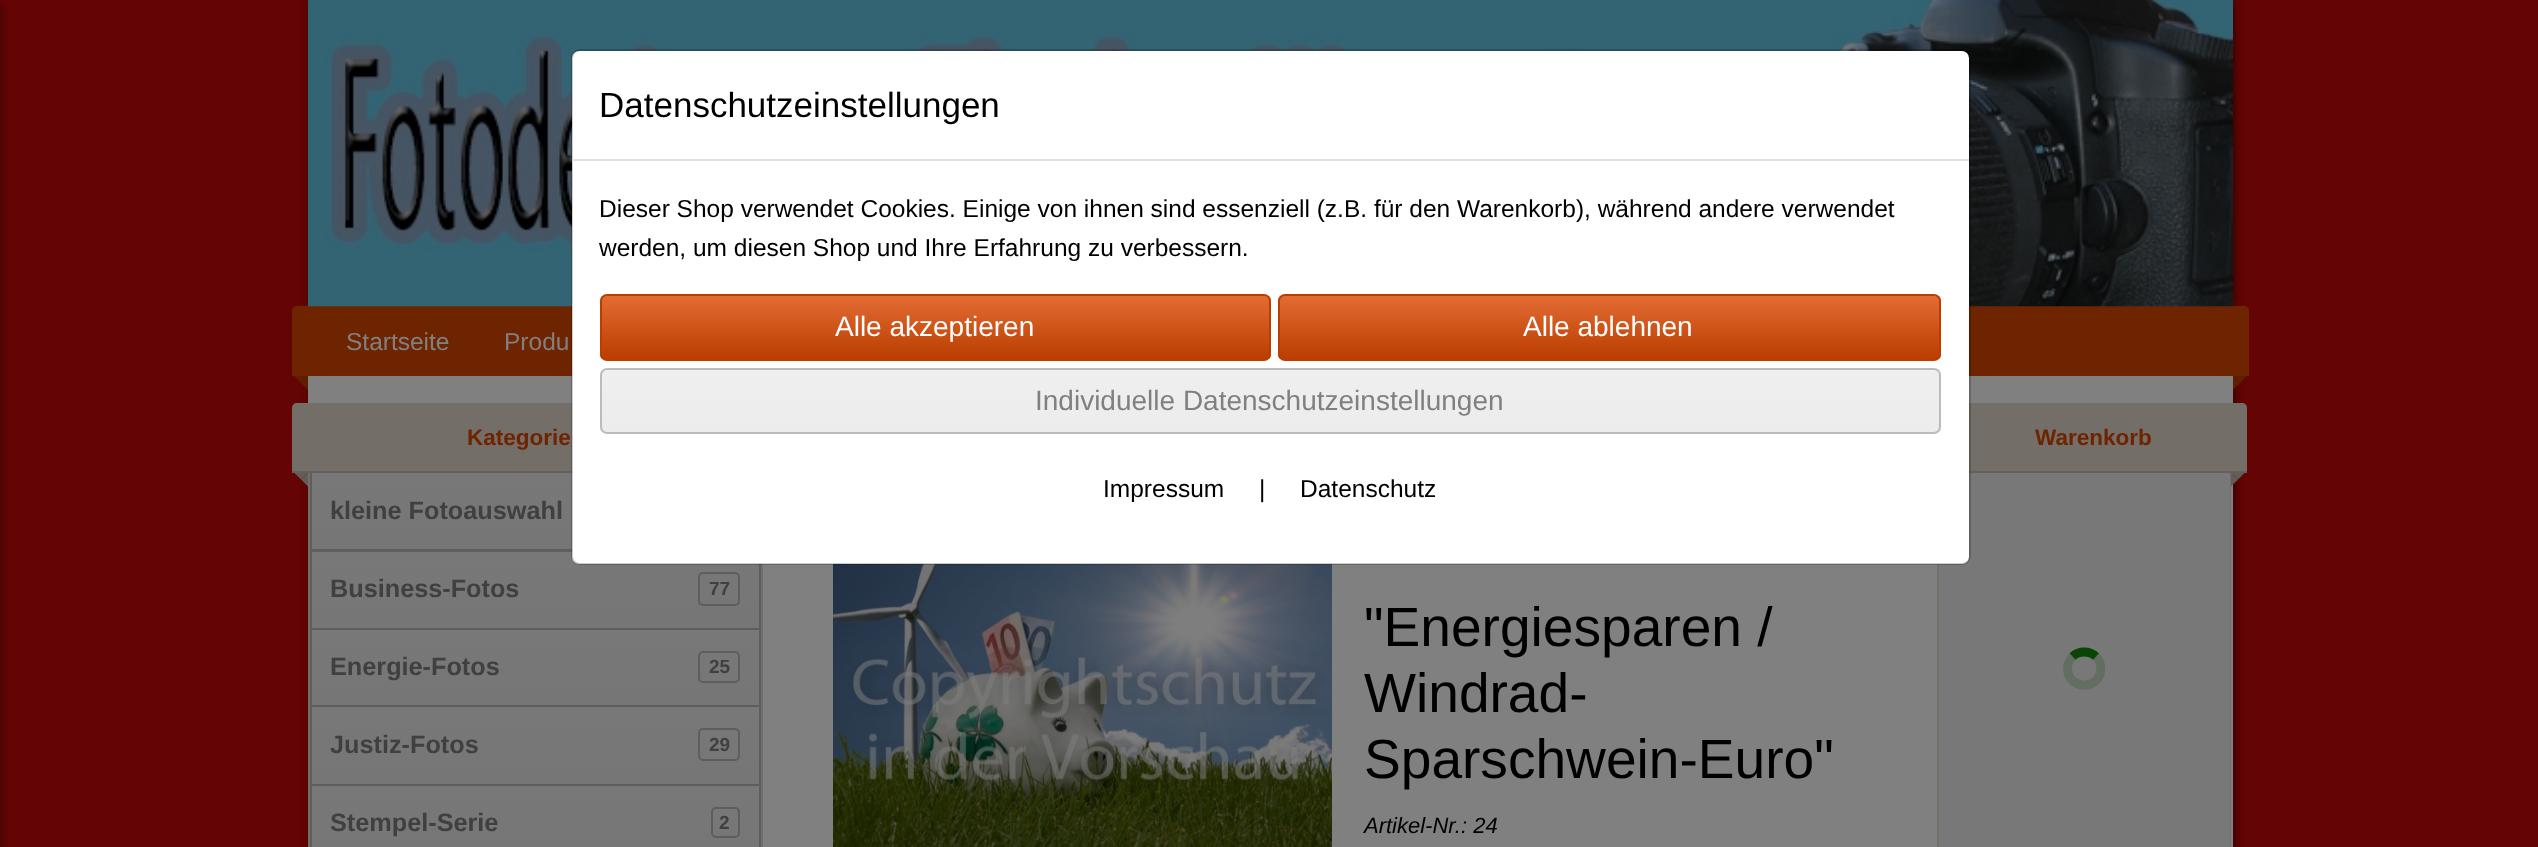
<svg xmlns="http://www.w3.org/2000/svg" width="2538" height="847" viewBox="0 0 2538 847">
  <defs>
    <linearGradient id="g1" gradientUnits="userSpaceOnUse" x1="536" y1="473" x2="536" y2="550"><stop offset="0" stop-color="rgb(120,120,120)"/><stop offset="1" stop-color="rgb(118,118,118)"/></linearGradient>
    <clipPath id="clip1"><rect x="310" y="473" width="451" height="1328"/></clipPath>
    <linearGradient id="g2" gradientUnits="userSpaceOnUse" x1="536" y1="551" x2="536" y2="628"><stop offset="0" stop-color="rgb(120,120,120)"/><stop offset="1" stop-color="rgb(118,118,118)"/></linearGradient>
    <clipPath id="clip2"><rect x="600" y="294" width="671" height="67" rx="7"/></clipPath>
    <linearGradient id="g3" gradientUnits="userSpaceOnUse" x1="935" y1="296" x2="935" y2="359"><stop offset="0" stop-color="rgb(227,108,51)"/><stop offset="1" stop-color="rgb(187,61,0)"/></linearGradient>
    <clipPath id="clip3"><rect x="1278" y="294" width="663" height="67" rx="7"/></clipPath>
    <linearGradient id="g4" gradientUnits="userSpaceOnUse" x1="1609" y1="296" x2="1609" y2="359"><stop offset="0" stop-color="rgb(227,108,51)"/><stop offset="1" stop-color="rgb(187,61,0)"/></linearGradient>
    <clipPath id="clip4"><rect x="600" y="368" width="1341" height="66" rx="7"/></clipPath>
    <linearGradient id="g5" gradientUnits="userSpaceOnUse" x1="1271" y1="369" x2="1271" y2="432"><stop offset="0" stop-color="rgb(239,239,239)"/><stop offset="1" stop-color="rgb(236,236,236)"/></linearGradient>
    <linearGradient id="g6" gradientUnits="userSpaceOnUse" x1="536" y1="630" x2="536" y2="705"><stop offset="0" stop-color="rgb(120,120,120)"/><stop offset="1" stop-color="rgb(118,118,118)"/></linearGradient>
    <linearGradient id="g7" gradientUnits="userSpaceOnUse" x1="536" y1="707" x2="536" y2="784"><stop offset="0" stop-color="rgb(120,120,120)"/><stop offset="1" stop-color="rgb(118,118,118)"/></linearGradient>
    <linearGradient id="g8" gradientUnits="userSpaceOnUse" x1="536" y1="786" x2="536" y2="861"><stop offset="0" stop-color="rgb(120,120,120)"/><stop offset="1" stop-color="rgb(118,118,118)"/></linearGradient>
  </defs>
  <rect width="100%" height="100%" fill="rgb(101,4,4)"/>
  <rect x="310" y="0" width="1925" height="306" fill="rgba(0,0,0,0.5)" filter="blur(5px)"/>
  <rect x="310" y="376" width="1925" height="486" fill="rgba(0,0,0,0.5)" filter="blur(5px)"/>
  <path d="M297 306H2244C2247 306 2249 308 2249 311V376H292V311C292 308 294 306 297 306Z" fill="rgb(111,36,0)"/>
  <image x="308" y="0" width="1925" height="307" href="pic1.png"/>
  <rect x="308" y="376" width="1925" height="471" fill="rgb(128,128,128)"/>
  <path d="M315 402H756C760 402 763 406 763 410V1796C763 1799 760 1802 756 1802H315C311 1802 308 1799 308 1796V410C308 406 311 402 315 402ZM315 402H756C759 402 761 406 761 410V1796C761 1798 759 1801 756 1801H315C312 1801 310 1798 310 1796V410C310 406 312 402 315 402Z" fill="rgb(115,110,104)" fill-rule="evenodd"/>
  <path d="M297 403H756C759 403 761 405 761 408V473H292V408C292 405 294 403 297 403Z" fill="rgb(115,110,104)"/>
  <rect x="292" y="471" width="280" height="2" fill="rgb(101,96,91)"/>
  <rect x="312" y="473" width="260" height="76" fill="url(#g1)"/>
  <g clip-path="url(#clip1)">
    <rect x="311" y="472" width="449" height="78" fill="none" stroke="rgb(94,94,94)" stroke-width="2"/>
  </g>
  <rect x="312" y="552" width="447" height="76" fill="url(#g2)"/>
  <rect x="311" y="551" width="449" height="78" fill="none" stroke="rgb(94,94,94)" stroke-width="2"/>
  <path d="M1944 402H2224C2228 402 2231 406 2231 410V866C2231 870 2228 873 2224 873H1944C1940 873 1937 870 1937 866V410C1937 406 1940 402 1944 402ZM1944 402H2224C2227 402 2230 406 2230 410V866C2230 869 2227 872 2224 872H1944C1941 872 1939 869 1939 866V410C1939 406 1941 402 1944 402Z" fill="rgb(115,110,104)" fill-rule="evenodd"/>
  <path d="M1944 403H2242C2245 403 2247 405 2247 408V473H1939V408C1939 405 1941 403 1944 403Z" fill="rgb(115,110,104)"/>
  <rect x="1939" y="473" width="291" height="374" fill="rgb(121,120,120)"/>
  <rect x="572" y="51" width="1397" height="513" rx="7" fill="rgb(255,255,255)"/>
  <rect x="1969" y="471" width="278" height="2" fill="rgb(101,96,91)"/>
  <image x="833" y="564" width="499" height="283" href="pic2.png"/>
  <rect x="572" y="50" width="1398" height="514" rx="8" fill="none" stroke="rgba(0,0,0,0.2)" stroke-width="2"/>
  <rect x="572" y="159" width="1397" height="2" fill="rgb(222,226,230)"/>
  <text x="599" y="117" font-family="Liberation Sans" font-size="35" fill="rgb(0,0,0)">Datenschutzeinstellungen</text>
  <g font-family="Liberation Sans" font-size="24.5" fill="rgb(0,0,0)">
    <text>
      <tspan x="599" y="217">Dieser Shop verwendet Cookies. Einige von ihnen sind essenziell (z.B. für den Warenkorb), während andere verwendet</tspan>
      <tspan x="599" y="256">werden, um diesen Shop und Ihre Erfahrung zu verbessern.</tspan>
    </text>
  </g>
  <g clip-path="url(#clip2)">
    <rect x="600" y="296" width="671" height="63" fill="url(#g3)"/>
  </g>
  <rect x="601" y="295" width="669" height="65" rx="6" fill="none" stroke="rgb(187,61,0)" stroke-width="2"/>
  <text x="835" y="336" font-family="Liberation Sans" font-size="28" fill="rgb(255,255,255)">Alle akzeptieren</text>
  <g clip-path="url(#clip3)">
    <rect x="1278" y="296" width="663" height="63" fill="url(#g4)"/>
  </g>
  <rect x="1279" y="295" width="661" height="65" rx="6" fill="none" stroke="rgb(187,61,0)" stroke-width="2"/>
  <text x="1523" y="336" font-family="Liberation Sans" font-size="28" fill="rgb(255,255,255)">Alle ablehnen</text>
  <g clip-path="url(#clip4)">
    <rect x="600" y="369" width="1341" height="63" fill="url(#g5)"/>
  </g>
  <rect x="601" y="369" width="1339" height="64" rx="6" fill="none" stroke="rgb(188,188,188)" stroke-width="2"/>
  <text x="1035" y="410" font-family="Liberation Sans" font-size="28" fill="rgb(128,128,128)">Individuelle Datenschutzeinstellungen</text>
  <g font-family="Liberation Sans" font-size="24.5" fill="rgb(0,0,0)">
    <text x="1103" y="497">Impressum</text>
    <text x="1259" y="497">|</text>
    <text x="1300" y="497">Datenschutz</text>
  </g>
  <rect x="-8" y="5" width="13" height="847" fill="rgba(0,0,0,0.2)" filter="blur(2.5px)"/>
  <g font-family="Liberation Sans" font-size="24.5" fill="rgb(128,128,128)">
    <text x="346" y="350">Startseite</text>
    <text x="504" y="350">Produ</text>
  </g>
  <path d="M294 376H308L301 383Z" fill="rgb(94,31,0)"/>
  <path d="M308 376V390L301 383Z" fill="rgb(94,31,0)"/>
  <path d="M2233 376H2247L2240 383Z" fill="rgb(94,31,0)"/>
  <path d="M2233 390V376L2240 383Z" fill="rgb(94,31,0)"/>
  <text x="467" y="445" font-family="Liberation Sans" font-size="22.5" font-weight="bold" fill="rgb(111,36,0)">Kategorie</text>
  <path d="M294 472.5H308L301 479.5Z" fill="rgb(98,93,88)"/>
  <path d="M308 472.5V486.5L301 479.5Z" fill="rgb(98,93,88)"/>
  <g font-family="Liberation Sans" font-size="25.25" font-weight="bold" fill="rgb(64,64,64)">
    <text x="330" y="519">kleine Fotoauswahl</text>
    <text x="330" y="597">Business-Fotos</text>
  </g>
  <rect x="699" y="573" width="40" height="32" rx="4" fill="none" stroke="rgb(94,94,94)" stroke-width="2"/>
  <text x="709" y="595" font-family="Liberation Sans" font-size="19" font-weight="bold" fill="rgb(64,64,64)">77</text>
  <rect x="312" y="630" width="447" height="75" fill="url(#g6)"/>
  <rect x="311" y="629" width="449" height="77" fill="none" stroke="rgb(94,94,94)" stroke-width="2"/>
  <text x="330" y="675" font-family="Liberation Sans" font-size="25.25" font-weight="bold" fill="rgb(64,64,64)">Energie-Fotos</text>
  <rect x="699" y="652" width="40" height="30" rx="4" fill="none" stroke="rgb(94,94,94)" stroke-width="2"/>
  <text x="709" y="673" font-family="Liberation Sans" font-size="19" font-weight="bold" fill="rgb(64,64,64)">25</text>
  <rect x="312" y="707" width="447" height="77" fill="url(#g7)"/>
  <rect x="311" y="706" width="449" height="79" fill="none" stroke="rgb(94,94,94)" stroke-width="2"/>
  <text x="330" y="753" font-family="Liberation Sans" font-size="25.25" font-weight="bold" fill="rgb(64,64,64)">Justiz-Fotos</text>
  <rect x="699" y="729" width="40" height="31" rx="4" fill="none" stroke="rgb(94,94,94)" stroke-width="2"/>
  <text x="709" y="751" font-family="Liberation Sans" font-size="19" font-weight="bold" fill="rgb(64,64,64)">29</text>
  <rect x="312" y="786" width="447" height="61" fill="url(#g8)"/>
  <rect x="311" y="785" width="449" height="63" fill="none" stroke="rgb(94,94,94)" stroke-width="2"/>
  <text x="330" y="831" font-family="Liberation Sans" font-size="25.25" font-weight="bold" fill="rgb(64,64,64)">Stempel-Serie</text>
  <rect x="712" y="808" width="27" height="29" rx="4" fill="none" stroke="rgb(94,94,94)" stroke-width="2"/>
  <text x="719" y="829" font-family="Liberation Sans" font-size="19" font-weight="bold" fill="rgb(64,64,64)">2</text>
  <text x="2035" y="445" font-family="Liberation Sans" font-size="22.5" font-weight="bold" fill="rgb(111,36,0)">Warenkorb</text>
  <path d="M2231 472.5H2245L2238 479.5Z" fill="rgb(98,93,88)"/>
  <path d="M2231 486.5V472.5L2238 479.5Z" fill="rgb(98,93,88)"/>
  <path d="M2072.5 656.5C2079 650.5 2089.5 650.5 2096 656.5" fill="none" stroke="rgb(9,69,5)" stroke-width="8.8"/>
  <path d="M2096 656.5C2100 660.5 2101.5 666.5 2100.5 672C2096.5 691.5 2067.5 688.5 2067.5 668.5C2067.5 664 2069.5 660 2072.5 656.5" fill="none" stroke="rgba(9,69,5,0.2)" stroke-width="8.8"/>
  <g font-family="Liberation Sans" font-size="55.1" fill="rgb(0,0,0)">
    <text>
      <tspan x="1364" y="646">"Energiesparen /</tspan>
      <tspan x="1364" y="712">Windrad-</tspan>
      <tspan x="1364" y="778">Sparschwein-Euro"</tspan>
    </text>
  </g>
  <text x="1364" y="833" font-family="Liberation Sans" font-size="22" font-style="italic" fill="rgb(0,0,0)">Artikel-Nr.: 24</text>
</svg>
